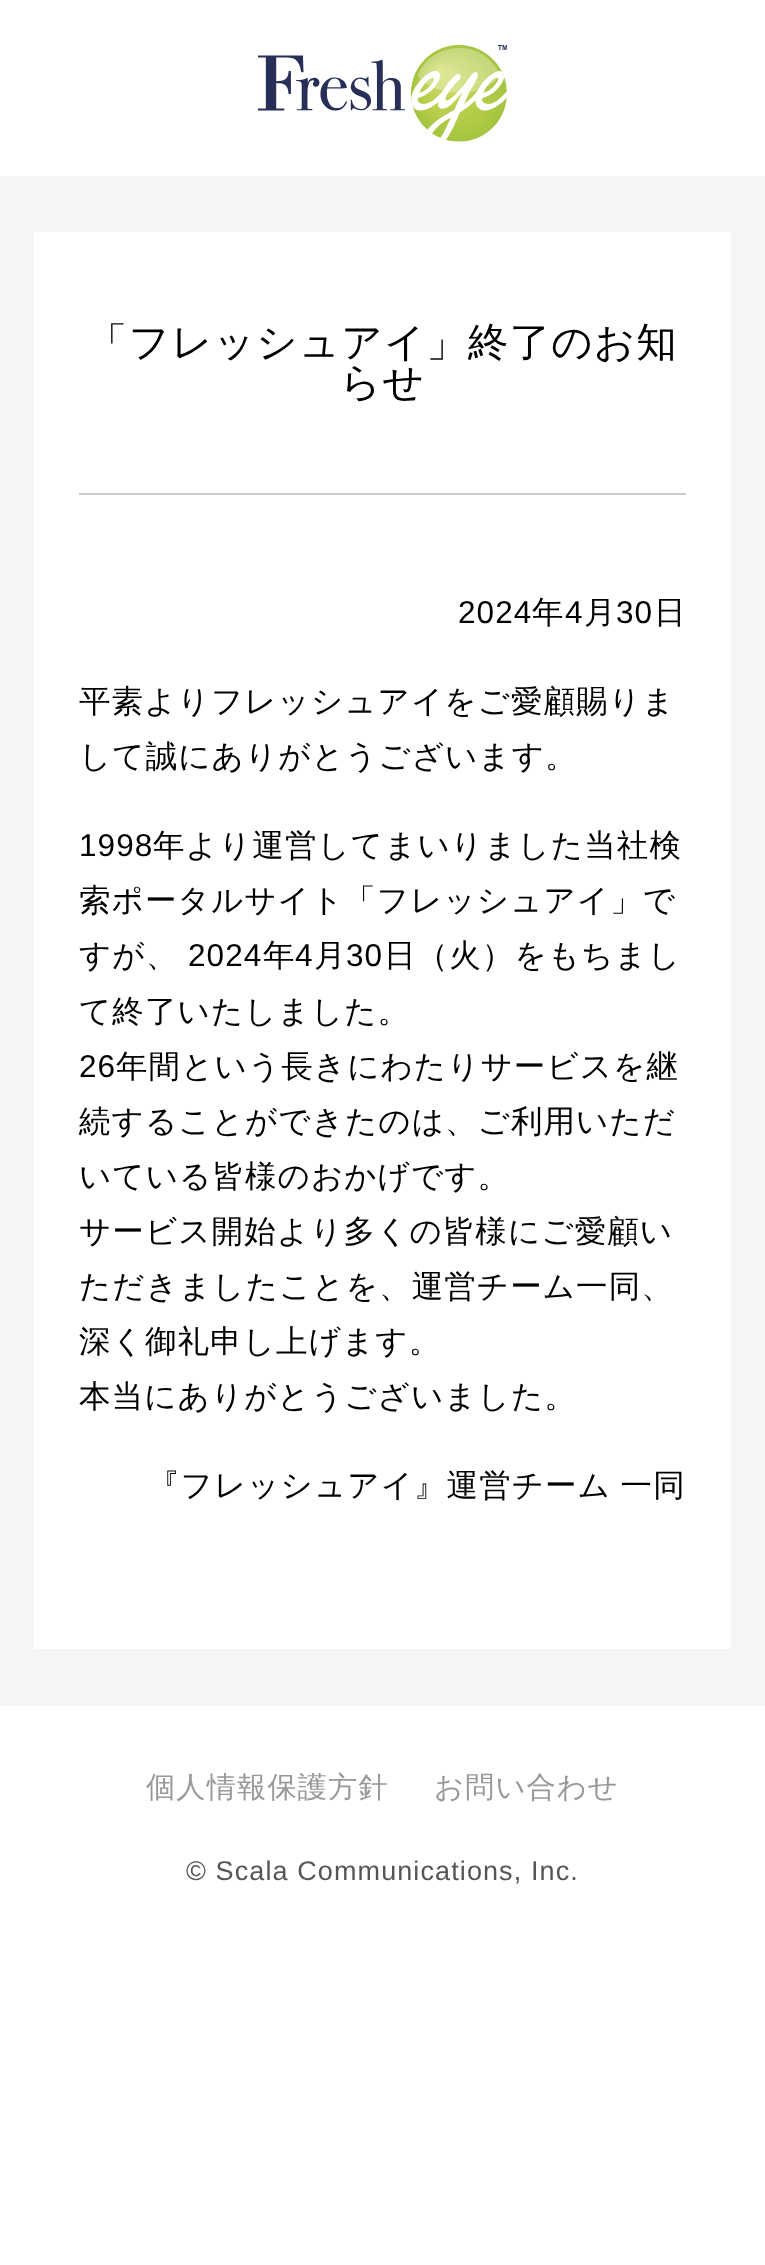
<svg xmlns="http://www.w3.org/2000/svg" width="765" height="2265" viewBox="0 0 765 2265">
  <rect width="100%" height="100%" fill="rgb(255,255,255)"/>
  <image x="258" y="45" width="249" height="97" href="pic1.png"/>
  <rect x="0" y="176" width="765" height="1530" fill="rgb(245,245,245)"/>
  <rect x="34" y="232" width="697" height="1417" fill="rgb(255,255,255)"/>
  <rect x="79" y="493" width="607" height="2" fill="rgb(204,204,204)"/>
  <g font-family="WenQuanYi Zen Hei" font-size="40.5" font-weight="500" letter-spacing="1.1" fill="rgb(0,0,0)">
    <text x="87" y="356">「フレッシュアイ」終了のお知</text>
    <text x="340" y="396">らせ</text>
  </g>
  <text x="458" y="623" font-family="Liberation Sans" font-size="31.5" letter-spacing="1.1" fill="rgb(0,0,0)">2024</text>
  <text x="532" y="623" font-family="WenQuanYi Zen Hei" font-size="31.5" font-weight="500" letter-spacing="1.1" fill="rgb(0,0,0)">年</text>
  <text x="565" y="623" font-family="Liberation Sans" font-size="31.5" letter-spacing="1.1" fill="rgb(0,0,0)">4</text>
  <text x="584" y="623" font-family="WenQuanYi Zen Hei" font-size="31.5" font-weight="500" letter-spacing="1.1" fill="rgb(0,0,0)">月</text>
  <text x="616" y="623" font-family="Liberation Sans" font-size="31.5" letter-spacing="1.1" fill="rgb(0,0,0)">30</text>
  <g font-family="WenQuanYi Zen Hei" font-size="31.5" font-weight="500" letter-spacing="1.1" fill="rgb(0,0,0)">
    <text x="654" y="623">日</text>
    <text>
      <tspan x="79" y="712">平素よりフレッシュアイをご愛顧賜りま</tspan>
      <tspan x="79" y="767">して誠にありがとうございます。</tspan>
    </text>
  </g>
  <text x="79" y="856" font-family="Liberation Sans" font-size="31.5" letter-spacing="1.1" fill="rgb(0,0,0)">1998</text>
  <g font-family="WenQuanYi Zen Hei" font-size="31.5" font-weight="500" letter-spacing="1.1" fill="rgb(0,0,0)">
    <text x="153" y="856">年より運営してまいりました当社検</text>
    <text>
      <tspan x="79" y="911">索ポータルサイト「フレッシュアイ」で</tspan>
      <tspan x="79" y="966">すが、</tspan>
    </text>
  </g>
  <text x="188" y="966" font-family="Liberation Sans" font-size="31.5" letter-spacing="1.1" fill="rgb(0,0,0)">2024</text>
  <text x="263" y="966" font-family="WenQuanYi Zen Hei" font-size="31.5" font-weight="500" letter-spacing="1.1" fill="rgb(0,0,0)">年</text>
  <text x="295" y="966" font-family="Liberation Sans" font-size="31.5" letter-spacing="1.1" fill="rgb(0,0,0)">4</text>
  <text x="314" y="966" font-family="WenQuanYi Zen Hei" font-size="31.5" font-weight="500" letter-spacing="1.1" fill="rgb(0,0,0)">月</text>
  <text x="346" y="966" font-family="Liberation Sans" font-size="31.5" letter-spacing="1.1" fill="rgb(0,0,0)">30</text>
  <g font-family="WenQuanYi Zen Hei" font-size="31.5" font-weight="500" letter-spacing="1.1" fill="rgb(0,0,0)">
    <text x="384" y="966">日（火）をもちまし</text>
    <text x="79" y="1022">て終了いたしました。</text>
  </g>
  <text x="79" y="1077" font-family="Liberation Sans" font-size="31.5" letter-spacing="1.1" fill="rgb(0,0,0)">26</text>
  <g font-family="WenQuanYi Zen Hei" font-size="31.5" font-weight="500" letter-spacing="1.1" fill="rgb(0,0,0)">
    <text x="116" y="1077">年間という長きにわたりサービスを継</text>
    <text>
      <tspan x="79" y="1132">続することができたのは、ご利用いただ</tspan>
      <tspan x="79" y="1187">いている皆様のおかげです。</tspan>
      <tspan x="79" y="1242">サービス開始より多くの皆様にご愛顧い</tspan>
      <tspan x="79" y="1297">ただきましたことを、運営チーム一同、</tspan>
      <tspan x="79" y="1352">深く御礼申し上げます。</tspan>
      <tspan x="79" y="1407">本当にありがとうございました。</tspan>
    </text>
    <text x="148" y="1496" word-spacing="-1">『フレッシュアイ』運営チーム 一同</text>
  </g>
  <g font-family="WenQuanYi Zen Hei" font-size="29.25" font-weight="500" letter-spacing="1.1" fill="rgb(153,153,153)">
    <text x="146" y="1797">個人情報保護方針</text>
    <text x="434" y="1797">お問い合わせ</text>
  </g>
  <text x="186" y="1880" font-family="Liberation Sans" font-size="27" letter-spacing="1.1" fill="rgb(85,85,85)">© Scala Communications, Inc.</text>
</svg>
